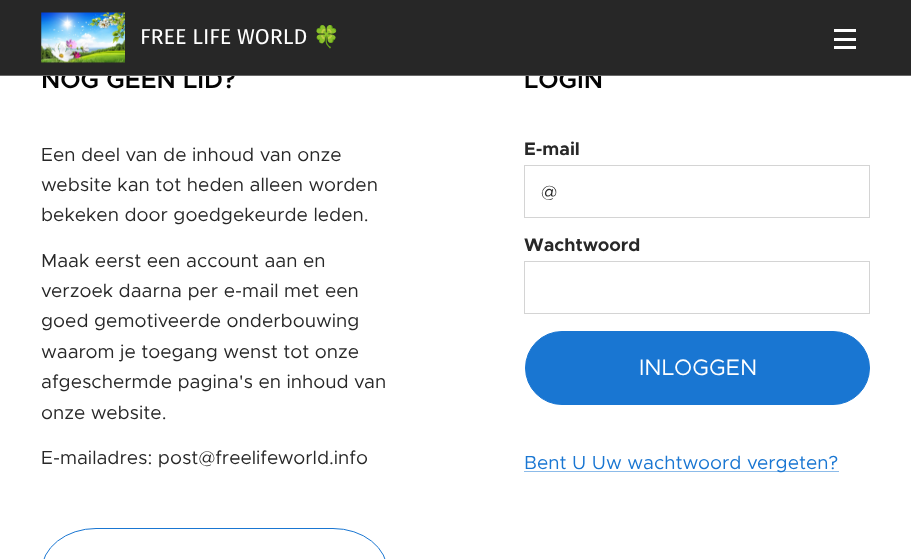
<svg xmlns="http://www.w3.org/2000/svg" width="911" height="559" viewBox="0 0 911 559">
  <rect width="100%" height="100%" fill="rgb(255,255,255)"/>
  <g font-family="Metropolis" font-size="25" font-weight="600" fill="rgb(3,3,3)">
    <text x="41" y="88">NOG GEEN LID?</text>
    <text x="524" y="88">LOGIN</text>
  </g>
  <rect x="0" y="0" width="911" height="75" fill="rgb(39,39,39)"/>
  <rect x="0" y="75" width="911" height="1" fill="rgb(104,104,104)"/>
  <image x="41" y="12" width="84" height="51" href="pic1.png"/>
  <text x="140" y="44" font-family="Fira Sans" font-size="21.5" fill="rgb(255,255,255)">FREE LIFE WORLD</text>
  <text x="313" y="44" font-family="Noto Color Emoji" font-size="21.5" fill="rgb(255,255,255)">🍀</text>
  <rect x="834" y="38" width="22" height="3" fill="rgb(255,255,255)"/>
  <rect x="834" y="29" width="22" height="3" fill="rgb(255,255,255)"/>
  <rect x="834" y="46" width="22" height="3" fill="rgb(255,255,255)"/>
  <g font-family="Metropolis" font-size="19" fill="rgb(40,40,40)">
    <text>
      <tspan x="41" y="161">Een deel van de inhoud van onze</tspan>
      <tspan x="41" y="191">website kan tot heden alleen worden</tspan>
      <tspan x="41" y="221">bekeken door goedgekeurde leden.</tspan>
    </text>
    <text>
      <tspan x="41" y="267">Maak eerst een account aan en</tspan>
      <tspan x="41" y="297">verzoek daarna per e-mail met een</tspan>
      <tspan x="41" y="327">goed gemotiveerde onderbouwing</tspan>
      <tspan x="41" y="358">waarom je toegang wenst tot onze</tspan>
      <tspan x="41" y="388">afgeschermde pagina's en inhoud van</tspan>
      <tspan x="41" y="419">onze website.</tspan>
    </text>
    <text x="41" y="464">E-mailadres: post@freelifeworld.info</text>
  </g>
  <rect x="41.5" y="528.5" width="346" height="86" rx="54.5" fill="none" stroke="rgb(25,118,210)"/>
  <text x="524" y="155" font-family="Metropolis" font-size="18.25" font-weight="bold" fill="rgb(40,40,40)">E-mail</text>
  <rect x="524.5" y="165.5" width="345" height="52" fill="none" stroke="rgb(212,212,212)"/>
  <text x="541" y="198" font-family="Metropolis" font-size="18.25" fill="rgb(40,40,40)">@</text>
  <text x="524" y="251" font-family="Metropolis" font-size="18.25" font-weight="bold" fill="rgb(40,40,40)">Wachtwoord</text>
  <rect x="524.5" y="261.5" width="345" height="52" fill="none" stroke="rgb(212,212,212)"/>
  <rect x="525.5" y="331.5" width="344" height="73" rx="36.5" fill="rgb(25,118,210)" stroke="rgb(25,118,210)"/>
  <text x="639" y="375" font-family="Metropolis" font-size="22.5" fill="rgb(255,255,255)">INLOGGEN</text>
  <rect x="524" y="471" width="315" height="1" fill="rgb(140,187,233)"/>
  <text x="524" y="469" font-family="Metropolis" font-size="19" fill="rgb(25,118,210)">Bent U Uw wachtwoord vergeten?</text>
</svg>
